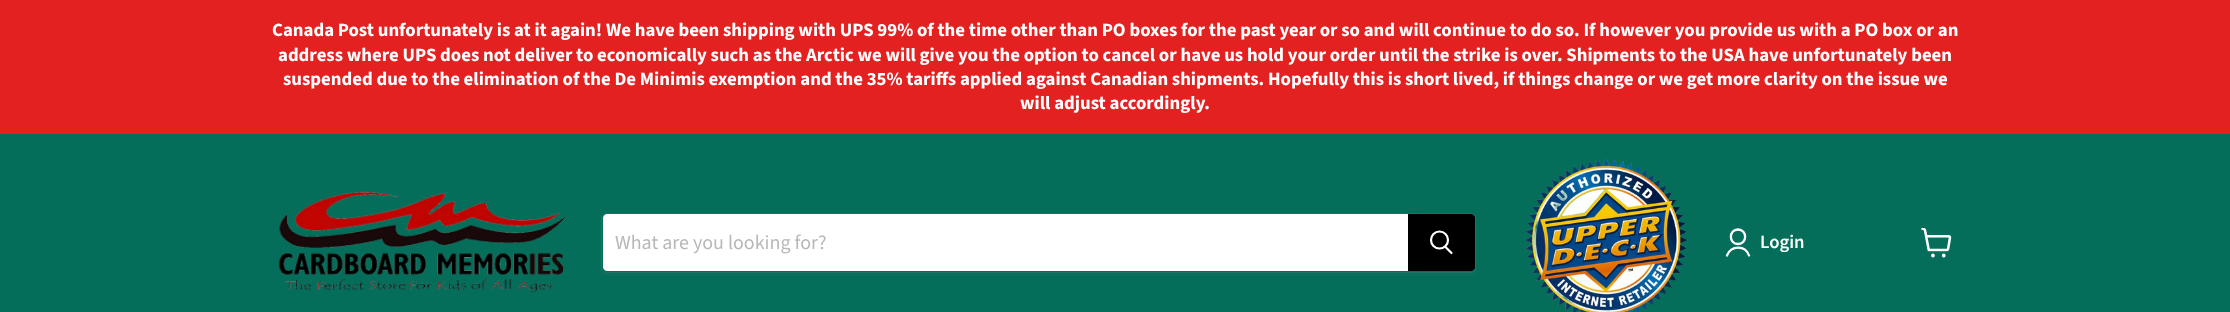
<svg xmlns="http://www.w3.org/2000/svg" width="2230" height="312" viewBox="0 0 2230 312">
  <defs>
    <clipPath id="clip1"><path d="M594 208H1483V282H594ZM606 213H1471C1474 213 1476 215 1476 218V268C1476 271 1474 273 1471 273H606C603 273 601 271 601 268V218C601 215 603 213 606 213Z" clip-rule="evenodd"/></clipPath>
  </defs>
  <rect width="100%" height="100%" fill="rgb(226,33,32)"/>
  <g font-family="Source Sans Pro" font-size="18.75" font-weight="bold" fill="rgb(255,255,255)">
    <text x="272" y="36">Canada Post unfortunately is at it again! We have been shipping with UPS 99% of the time other than PO boxes for the past year or so and will continue to do so. If however you provide us with a PO box or an</text>
    <text x="278" y="61">address where UPS does not deliver to economically such as the Arctic we will give you the option to cancel or have us hold your order until the strike is over. Shipments to the USA have unfortunately been</text>
    <text x="283" y="85">suspended due to the elimination of the De Minimis exemption and the 35% tariffs applied against Canadian shipments. Hopefully this is short lived, if things change or we get more clarity on the issue we</text>
    <text x="1020" y="109">will adjust accordingly.</text>
  </g>
  <rect x="0" y="134" width="2230" height="178" fill="rgb(4,110,91)"/>
  <image x="278" y="191" width="289" height="102" href="pic1.png"/>
  <g clip-path="url(#clip1)">
    <rect x="601" y="215" width="875" height="60" rx="5" fill="rgba(128,128,128,0.11)" filter="blur(2px)"/>
  </g>
  <rect x="601.5" y="213.5" width="874" height="59" rx="4.5" fill="none" stroke="rgba(128,128,128,0.2)"/>
  <path d="M607 214H1408V271H607C605 271 603 269 603 267V218C603 216 605 214 607 214Z" fill="rgb(255,255,255)"/>
  <text x="615" y="249" font-family="Source Sans Pro" font-size="20" fill="rgb(184,184,184)">What are you looking for?</text>
  <path d="M1408.5 214.5H1471C1473 214.5 1474.5 216 1474.5 218V267C1474.5 269 1473 270.5 1471 270.5H1408.5Z" fill="rgb(0,0,0)" stroke="rgb(0,0,0)"/>
  <path d="M1451.5 253L1445.5 247" fill="none" stroke="rgb(255,255,255)" stroke-width="2.2" stroke-linecap="round"/>
  <circle cx="1439.5" cy="240" r="8.5" fill="none" stroke="rgb(255,255,255)" stroke-width="2.2"/>
  <image x="1525" y="158" width="163" height="154" href="pic2.png"/>
  <path d="M1738 244C1747.5 244 1747.5 229.5 1738 229.5C1728.5 229.5 1728.5 244 1738 244ZM1749 255.5C1745.5 245 1731 245 1727 255.5" fill="none" stroke="rgb(255,255,255)" stroke-width="2.3" stroke-linecap="round" stroke-linejoin="round"/>
  <text x="1760" y="248" font-family="Source Sans Pro" font-size="18.75" font-weight="600" fill="rgb(255,255,255)">Login</text>
  <image x="1921" y="228" width="31" height="30" href="pic3.png"/>
</svg>
